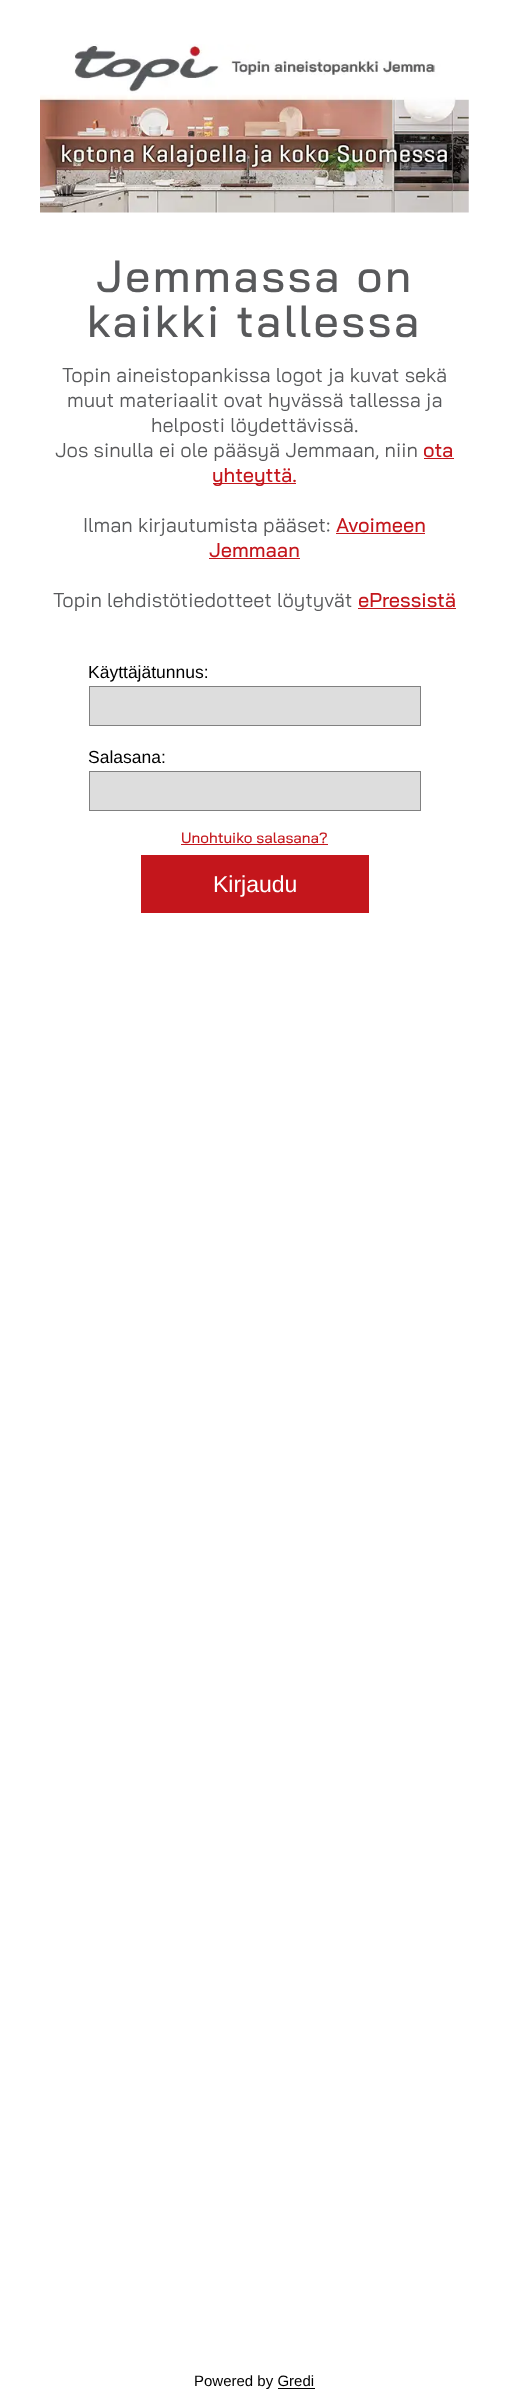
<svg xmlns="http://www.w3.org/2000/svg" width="508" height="2399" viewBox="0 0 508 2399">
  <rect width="100%" height="100%" fill="rgb(255,255,255)"/>
  <image x="40" y="44" width="429" height="169" href="pic1.png"/>
  <g font-family="Bai Jamjuree" font-size="45" font-weight="500" letter-spacing="2.5" fill="rgb(88,89,91)">
    <text x="96" y="292">Jemmassa on</text>
    <text x="87" y="337">kaikki tallessa</text>
  </g>
  <g font-family="Bai Jamjuree" font-size="20" fill="rgb(88,89,91)">
    <text x="62" y="382">Topin aineistopankissa logot ja kuvat sekä</text>
    <text x="67" y="407">muut materiaalit ovat hyvässä tallessa ja</text>
    <text x="151" y="432">helposti löydettävissä.</text>
    <text x="55" y="457">Jos sinulla ei ole pääsyä Jemmaan, niin</text>
  </g>
  <text x="423" y="457" font-family="Bai Jamjuree" font-size="20" font-weight="500" fill="rgb(196,22,28)">ota</text>
  <rect x="424" y="458" width="30" height="1" fill="rgb(196,22,28)"/>
  <rect x="213" y="483" width="83" height="1" fill="rgb(196,22,28)"/>
  <text x="212" y="482" font-family="Bai Jamjuree" font-size="20" font-weight="500" fill="rgb(196,22,28)">yhteyttä.</text>
  <text x="83" y="532" font-family="Bai Jamjuree" font-size="20" fill="rgb(88,89,91)">Ilman kirjautumista pääset:</text>
  <text x="336" y="532" font-family="Bai Jamjuree" font-size="20" font-weight="500" fill="rgb(196,22,28)">Avoimeen</text>
  <rect x="336" y="533" width="89" height="1" fill="rgb(196,22,28)"/>
  <text x="209" y="557" font-family="Bai Jamjuree" font-size="20" font-weight="500" fill="rgb(196,22,28)">Jemmaan</text>
  <rect x="209" y="558" width="91" height="1" fill="rgb(196,22,28)"/>
  <text x="53" y="607" font-family="Bai Jamjuree" font-size="20" fill="rgb(88,89,91)">Topin lehdistötiedotteet löytyvät</text>
  <text x="358" y="607" font-family="Bai Jamjuree" font-size="20" font-weight="500" fill="rgb(196,22,28)">ePressistä</text>
  <rect x="358" y="608" width="98" height="1" fill="rgb(196,22,28)"/>
  <text x="88" y="678" font-family="Liberation Sans" font-size="17.5" fill="rgb(0,0,0)">Käyttäjätunnus:</text>
  <rect x="89.5" y="686.5" width="331" height="39" fill="rgb(221,221,221)" stroke="rgb(128,128,128)"/>
  <text x="88" y="763" font-family="Liberation Sans" font-size="17.5" fill="rgb(0,0,0)">Salasana:</text>
  <rect x="89.5" y="771.5" width="331" height="39" fill="rgb(221,221,221)" stroke="rgb(128,128,128)"/>
  <text x="181" y="843" font-family="Bai Jamjuree" font-size="15" font-weight="500" fill="rgb(196,22,28)">Unohtuiko salasana?</text>
  <rect x="181" y="844" width="147" height="1" fill="rgb(196,22,28)"/>
  <rect x="141" y="855" width="228" height="58" fill="rgb(196,22,28)"/>
  <text x="213" y="892" font-family="Liberation Sans" font-size="23" fill="rgb(255,255,255)">Kirjaudu</text>
  <text x="194" y="2386" font-family="Liberation Sans" font-size="15" fill="rgb(0,0,0)">Powered by Gredi</text>
  <rect x="278" y="2388" width="37" height="1" fill="rgb(0,0,0)"/>
</svg>
